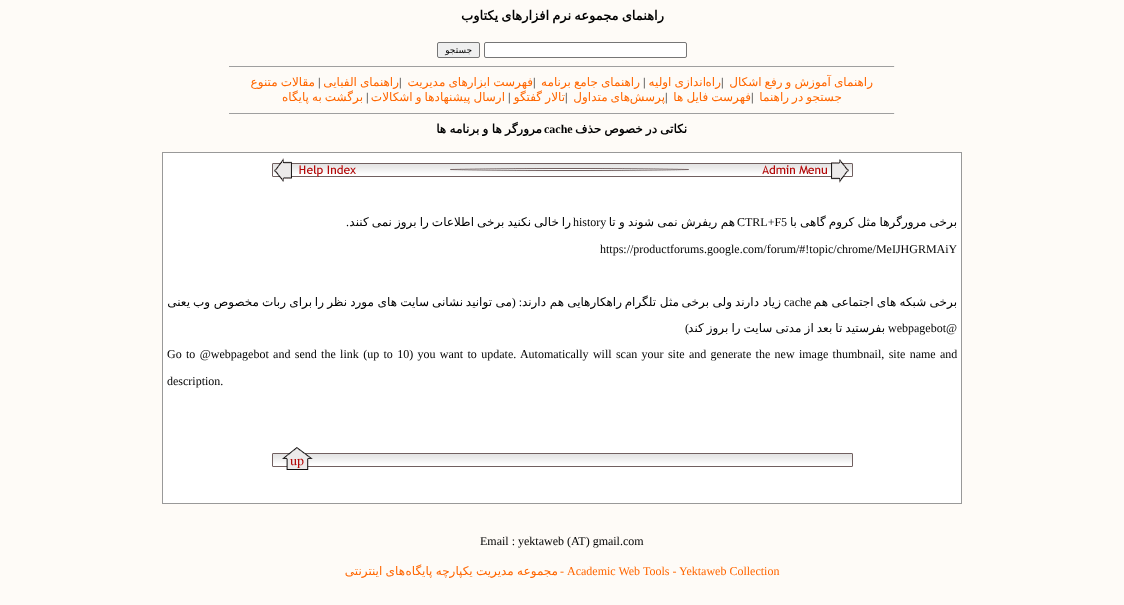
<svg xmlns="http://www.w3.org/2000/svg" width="1124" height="605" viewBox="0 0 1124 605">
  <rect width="100%" height="100%" fill="rgb(254,251,247)"/>
  <text x="664" y="20" word-spacing="-1" font-family="DejaVu Sans" font-size="13" font-weight="bold" direction="rtl" fill="rgb(0,0,0)">راهنمای مجموعه نرم افزارهای یکتاوب</text>
  <rect x="484.5" y="42.5" width="202" height="15" rx="1.5" fill="rgb(255,255,255)" stroke="rgb(118,118,118)"/>
  <rect x="437.5" y="42.5" width="42" height="15" rx="1.5" fill="rgb(239,239,239)" stroke="rgb(118,118,118)"/>
  <text x="472" y="53" font-family="DejaVu Sans" font-size="9" direction="rtl" fill="rgb(0,0,0)">جستجو</text>
  <rect x="229" y="66" width="666" height="1" fill="rgb(159,159,159)"/>
  <rect x="894" y="66" width="1" height="1" fill="rgb(238,238,238)"/>
  <g font-family="DejaVu Sans" font-size="12" direction="rtl" fill="rgb(255,102,0)">
    <text x="873" y="86" word-spacing="-0.75">راهنمای آموزش و رفع اشکال</text>
    <text x="721" y="86">راه</text>
    <text x="706" y="86" word-spacing="-0.75">اندازی اولیه</text>
    <text x="640" y="86" word-spacing="-0.75">راهنمای جامع برنامه</text>
  </g>
  <text x="533" y="86" font-family="Liberation Serif" font-size="12" fill="rgb(0,0,0)">|</text>
  <text x="533" y="86" word-spacing="-0.75" font-family="DejaVu Sans" font-size="12" direction="rtl" fill="rgb(255,102,0)">فهرست ابزارهای مدیریت</text>
  <text x="399" y="86" font-family="Liberation Serif" font-size="12" fill="rgb(0,0,0)">|</text>
  <text x="399" y="86" word-spacing="-0.75" font-family="DejaVu Sans" font-size="12" direction="rtl" fill="rgb(255,102,0)">راهنمای الفبایی</text>
  <text x="318" y="86" font-family="Liberation Serif" font-size="12" fill="rgb(0,0,0)">|</text>
  <text x="315" y="86" word-spacing="-0.75" font-family="DejaVu Sans" font-size="12" direction="rtl" fill="rgb(255,102,0)">مقالات متنوع</text>
  <g font-family="Liberation Serif" font-size="12" fill="rgb(0,0,0)">
    <text x="721" y="86">|</text>
    <text x="643" y="86">|</text>
  </g>
  <text x="842" y="101" word-spacing="-0.75" font-family="DejaVu Sans" font-size="12" direction="rtl" fill="rgb(255,102,0)">جستجو در راهنما</text>
  <text x="751" y="101" font-family="Liberation Serif" font-size="12" fill="rgb(0,0,0)">|</text>
  <text x="751" y="101" word-spacing="-0.75" font-family="DejaVu Sans" font-size="12" direction="rtl" fill="rgb(255,102,0)">فهرست فایل ها</text>
  <text x="665" y="101" font-family="Liberation Serif" font-size="12" fill="rgb(0,0,0)">|</text>
  <text x="630" y="101" word-spacing="-0.75" font-family="DejaVu Sans" font-size="12" direction="rtl" fill="rgb(255,102,0)">های متداول</text>
  <text x="565" y="101" font-family="Liberation Serif" font-size="12" fill="rgb(0,0,0)">|</text>
  <g font-family="DejaVu Sans" font-size="12" direction="rtl" fill="rgb(255,102,0)">
    <text x="565" y="101">تالار</text>
    <text x="542" y="101">گفتگو</text>
  </g>
  <text x="508" y="101" font-family="Liberation Serif" font-size="12" fill="rgb(0,0,0)">|</text>
  <text x="505" y="101" word-spacing="-0.75" font-family="DejaVu Sans" font-size="12" direction="rtl" fill="rgb(255,102,0)">ارسال پیشنهادها و اشکالات</text>
  <text x="366" y="101" font-family="Liberation Serif" font-size="12" fill="rgb(0,0,0)">|</text>
  <g font-family="DejaVu Sans" font-size="12" direction="rtl" fill="rgb(255,102,0)">
    <text x="363" y="101" word-spacing="-0.75">برگشت به پایگاه</text>
    <text x="665" y="101">پرسش</text>
  </g>
  <rect x="229" y="113" width="666" height="1" fill="rgb(159,159,159)"/>
  <rect x="894" y="113" width="1" height="1" fill="rgb(238,238,238)"/>
  <text x="687" y="133" word-spacing="-0.75" font-family="DejaVu Sans" font-size="12" font-weight="bold" direction="rtl" fill="rgb(0,0,0)">نکاتی در خصوص حذف</text>
  <text x="544" y="133" font-family="Liberation Serif" font-size="12" font-weight="bold" fill="rgb(0,0,0)">cache</text>
  <text x="542" y="133" word-spacing="-0.5" font-family="DejaVu Sans" font-size="12" font-weight="bold" direction="rtl" fill="rgb(0,0,0)">مرورگر ها و برنامه ها</text>
  <rect x="162.5" y="152.5" width="799" height="351" fill="rgb(255,255,255)" stroke="rgb(153,153,153)"/>
  <image x="272" y="158" width="581" height="25" href="pic1.png"/>
  <g font-family="DejaVu Sans" font-size="12" direction="rtl" fill="rgb(0,0,0)">
    <text x="957" y="226" word-spacing="-0.75">برخی مرورگرها مثل کروم گاهی با</text>
    <text x="735" y="226" word-spacing="-0.5">هم ریفرش نمی شوند و تا</text>
  </g>
  <text x="737" y="226" font-family="Liberation Serif" font-size="12" fill="rgb(0,0,0)">CTRL+F5</text>
  <text x="571" y="226" word-spacing="-0.75" font-family="DejaVu Sans" font-size="12" direction="rtl" fill="rgb(0,0,0)">را خالی نکنید برخی اطلاعات را بروز نمی کنند</text>
  <text x="573" y="226" font-family="Liberation Serif" font-size="12" fill="rgb(0,0,0)">history</text>
  <text x="349" y="226" font-family="Liberation Serif" font-size="12" direction="rtl" fill="rgb(0,0,0)">.</text>
  <text x="600" y="253" font-family="Liberation Serif" font-size="12" fill="rgb(0,0,0)">https://productforums.google.com/forum/#!topic/chrome/MeIJHGRMAiY</text>
  <text x="957" y="306" word-spacing="-0.5" font-family="DejaVu Sans" font-size="12" direction="rtl" fill="rgb(0,0,0)">برخی شبکه های اجتماعی هم</text>
  <text x="784" y="306" font-family="Liberation Serif" font-size="12" fill="rgb(0,0,0)">cache</text>
  <g font-family="DejaVu Sans" font-size="12" direction="rtl" fill="rgb(0,0,0)">
    <text x="781" y="306">زیاد</text>
    <text x="759" y="306">دارند</text>
    <text x="732" y="306">ولی</text>
    <text x="709" y="306">برخی</text>
    <text x="679" y="306">مثل</text>
    <text x="656" y="306">تلگرام</text>
    <text x="622" y="306">راهکارهایی</text>
    <text x="564" y="306">هم</text>
    <text x="546" y="306">دارند</text>
  </g>
  <text x="522" y="306" font-family="Liberation Serif" font-size="12" direction="rtl" fill="rgb(0,0,0)">: (</text>
  <g font-family="DejaVu Sans" font-size="12" direction="rtl" fill="rgb(0,0,0)">
    <text x="512" y="306">می</text>
    <text x="492" y="306">توانید</text>
    <text x="463" y="306">نشانی</text>
    <text x="429" y="306">سایت</text>
    <text x="397" y="306">های</text>
    <text x="374" y="306">مورد</text>
    <text x="347" y="306">نظر</text>
    <text x="324" y="306">را</text>
    <text x="312" y="306">برای</text>
    <text x="286" y="306">ربات</text>
    <text x="259" y="306">مخصوص</text>
    <text x="210" y="306">وب</text>
    <text x="190" y="306">یعنی</text>
    <text x="885" y="332" word-spacing="-0.75">بفرستید تا بعد از مدتی سایت را بروز کند</text>
  </g>
  <text x="888" y="332" font-family="Liberation Serif" font-size="12" fill="rgb(0,0,0)">webpagebot@</text>
  <text x="689" y="332" font-family="Liberation Serif" font-size="12" direction="rtl" fill="rgb(0,0,0)">)</text>
  <g font-family="Liberation Serif" font-size="12" fill="rgb(0,0,0)">
    <text x="167" y="358" word-spacing="1.35">Go to @webpagebot and send the link (up to 10) you want to update. Automatically will scan your site and generate the new image thumbnail, site name and</text>
    <text x="167" y="385">description.</text>
  </g>
  <image x="272" y="447" width="581" height="23" href="pic2.png"/>
  <text x="480" y="545" font-family="Liberation Serif" font-size="12" fill="rgb(0,0,0)">Email : yektaweb (AT) gmail.com</text>
  <text x="567" y="575" font-family="Liberation Serif" font-size="12" fill="rgb(255,102,0)">Academic Web Tools - Yektaweb Collection</text>
  <text x="564" y="575" font-family="Liberation Serif" font-size="12" direction="rtl" fill="rgb(255,102,0)">-</text>
  <g font-family="DejaVu Sans" font-size="12" direction="rtl" fill="rgb(255,102,0)">
    <text x="558" y="575" word-spacing="-0.5">مجموعه مدیریت یکپارچه پایگاه</text>
    <text x="405" y="575" word-spacing="-0.5">های اینترنتی</text>
  </g>
</svg>
